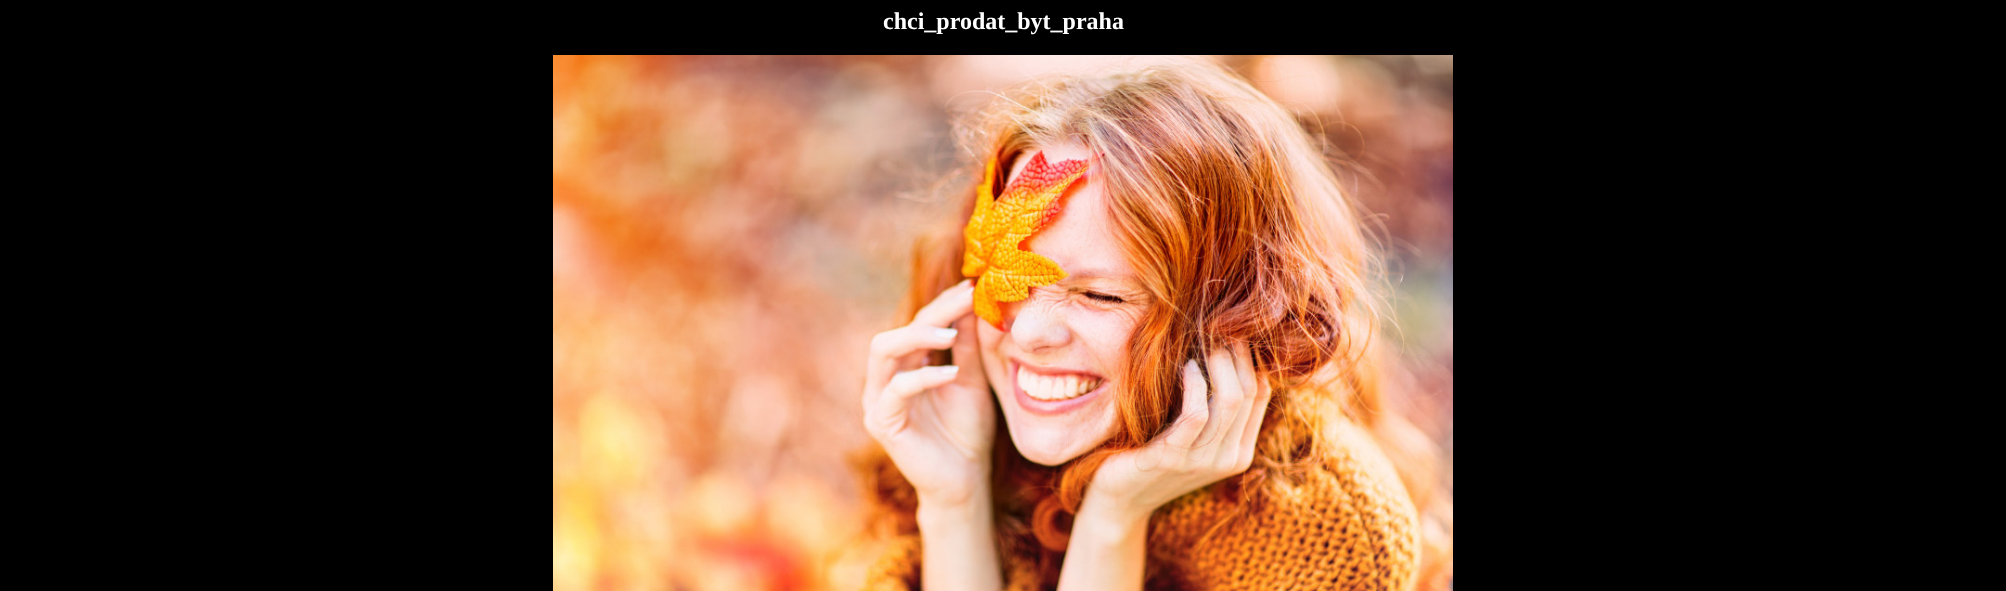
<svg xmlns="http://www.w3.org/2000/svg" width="2006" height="591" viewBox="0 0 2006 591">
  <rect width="100%" height="100%" fill="rgb(0,0,0)"/>
  <text x="883" y="29" font-family="Liberation Serif" font-size="24" font-weight="bold" fill="rgb(255,255,255)">chci_prodat_byt_praha</text>
  <image x="553" y="55" width="900" height="536" href="pic1.png"/>
</svg>
